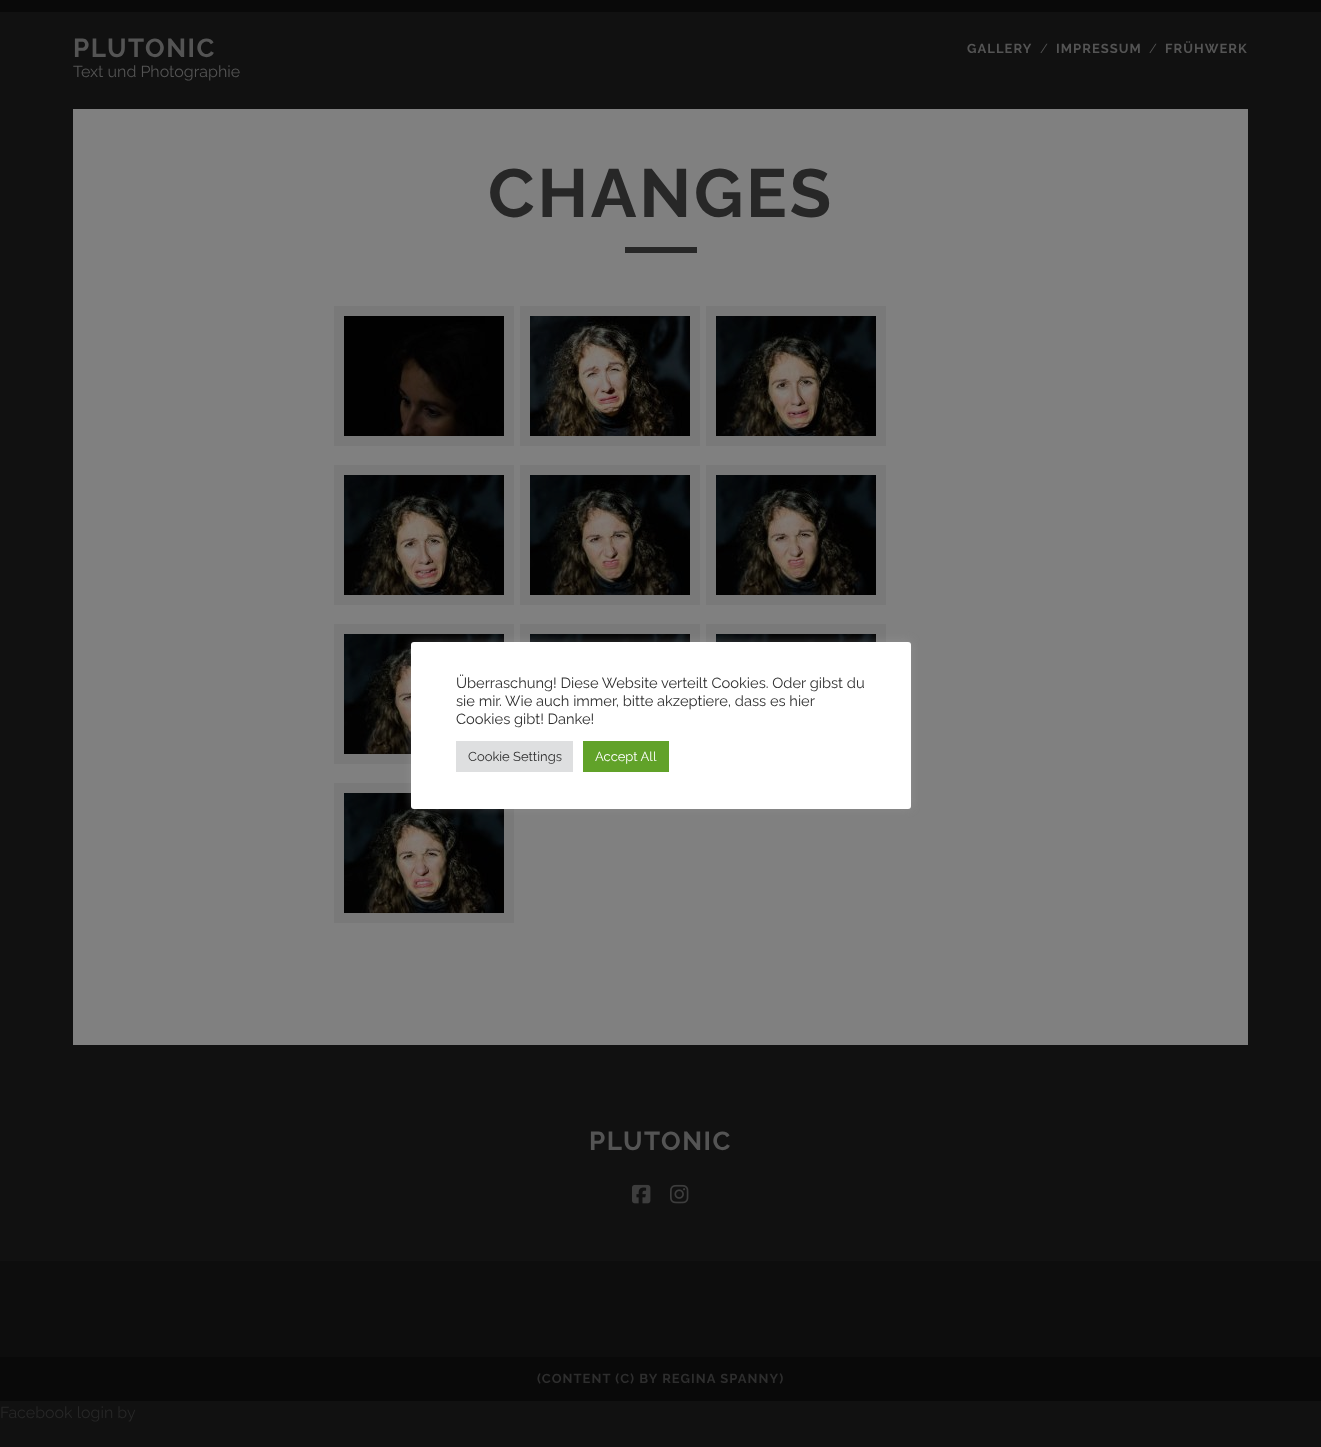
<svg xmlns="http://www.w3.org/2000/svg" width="1321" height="1447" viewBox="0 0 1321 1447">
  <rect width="100%" height="100%" fill="rgb(17,17,17)"/>
  <rect x="0" y="0" width="1321" height="12" fill="rgb(9,9,9)"/>
  <text x="73" y="57" font-family="Raleway" font-size="26" font-weight="bold" letter-spacing="1.5" fill="rgb(84,84,84)">PLUTONIC</text>
  <text x="967" y="53" font-family="Raleway" font-size="13" font-weight="bold" letter-spacing="1.05" fill="rgb(84,84,84)">GALLERY</text>
  <text x="1040" y="53" font-family="Raleway" font-size="13" fill="rgb(84,84,84)">/</text>
  <text x="1056" y="53" font-family="Raleway" font-size="13" font-weight="bold" letter-spacing="1.05" fill="rgb(84,84,84)">IMPRESSUM</text>
  <text x="1149" y="53" font-family="Raleway" font-size="13" fill="rgb(84,84,84)">/</text>
  <text x="1165" y="53" font-family="Raleway" font-size="13" font-weight="bold" letter-spacing="1.05" fill="rgb(84,84,84)">FRÜHWERK</text>
  <text x="73" y="77" font-family="Raleway" font-size="16" fill="rgb(84,84,84)">Text und Photographie</text>
  <rect x="73" y="109" width="1175" height="936" fill="rgb(128,128,128)"/>
  <text x="488" y="217" font-family="Raleway" font-size="68" font-weight="bold" letter-spacing="2.75" fill="rgb(39,39,39)">CHANGES</text>
  <rect x="625" y="247" width="72" height="6" fill="rgb(39,39,39)"/>
  <rect x="339" y="311" width="170" height="130" fill="none" stroke="rgb(121,121,121)" stroke-width="10"/>
  <image x="344" y="316" width="160" height="120" href="pic1.png"/>
  <rect x="525" y="311" width="170" height="130" fill="none" stroke="rgb(121,121,121)" stroke-width="10"/>
  <image x="530" y="316" width="160" height="120" href="pic2.png"/>
  <rect x="711" y="311" width="170" height="130" fill="none" stroke="rgb(121,121,121)" stroke-width="10"/>
  <image x="716" y="316" width="160" height="120" href="pic3.png"/>
  <rect x="339" y="470" width="170" height="130" fill="none" stroke="rgb(121,121,121)" stroke-width="10"/>
  <image x="344" y="475" width="160" height="120" href="pic4.png"/>
  <rect x="525" y="470" width="170" height="130" fill="none" stroke="rgb(121,121,121)" stroke-width="10"/>
  <image x="530" y="475" width="160" height="120" href="pic5.png"/>
  <rect x="711" y="470" width="170" height="130" fill="none" stroke="rgb(121,121,121)" stroke-width="10"/>
  <image x="716" y="475" width="160" height="120" href="pic6.png"/>
  <rect x="339" y="629" width="170" height="130" fill="none" stroke="rgb(121,121,121)" stroke-width="10"/>
  <image x="344" y="634" width="160" height="120" href="pic7.png"/>
  <rect x="525" y="629" width="170" height="130" fill="none" stroke="rgb(121,121,121)" stroke-width="10"/>
  <image x="530" y="634" width="160" height="8" href="pic8.png"/>
  <rect x="711" y="629" width="170" height="130" fill="none" stroke="rgb(121,121,121)" stroke-width="10"/>
  <image x="716" y="634" width="160" height="8" href="pic9.png"/>
  <rect x="339" y="788" width="170" height="130" fill="none" stroke="rgb(121,121,121)" stroke-width="10"/>
  <image x="344" y="793" width="160" height="120" href="pic10.png"/>
  <text x="589" y="1150" font-family="Raleway" font-size="26" font-weight="bold" letter-spacing="1.5" fill="rgb(84,84,84)">PLUTONIC</text>
  <image x="632" y="1184" width="19" height="20" href="pic11.png"/>
  <image x="670" y="1184" width="19" height="20" href="pic12.png"/>
  <rect x="0" y="1261" width="1321" height="96" fill="rgb(13,13,13)"/>
  <rect x="0" y="1357" width="1321" height="44" fill="rgb(9,9,9)"/>
  <text x="537" y="1383" font-family="Raleway" font-size="13" font-weight="bold" letter-spacing="1.05" fill="rgb(46,46,46)">(CONTENT (C) BY REGINA SPANNY)</text>
  <rect x="411" y="641" width="500" height="167" rx="3" fill="rgba(172,171,171,0.3)" filter="blur(5px)"/>
  <rect x="411" y="642" width="500" height="167" rx="3" fill="rgb(255,255,255)"/>
  <g font-family="Raleway" font-size="14.7" fill="rgb(46,46,46)">
    <text>
      <tspan x="456" y="688">Überraschung! Diese Website verteilt Cookies. Oder gibst du</tspan>
      <tspan x="456" y="706">sie mir. Wie auch immer, bitte akzeptiere, dass es hier</tspan>
      <tspan x="456" y="724">Cookies gibt! Danke!</tspan>
    </text>
  </g>
  <rect x="456" y="741" width="117" height="31" fill="rgb(222,223,224)"/>
  <text x="468" y="761" font-family="Raleway" font-size="13" fill="rgb(46,46,46)">Cookie Settings</text>
  <rect x="583" y="741" width="86" height="31" fill="rgb(97,162,41)"/>
  <text x="595" y="761" font-family="Raleway" font-size="13" fill="rgb(255,255,255)">Accept All</text>
  <text x="0" y="1418" font-family="Raleway" font-size="16" fill="rgb(39,39,39)">Facebook login by</text>
</svg>
